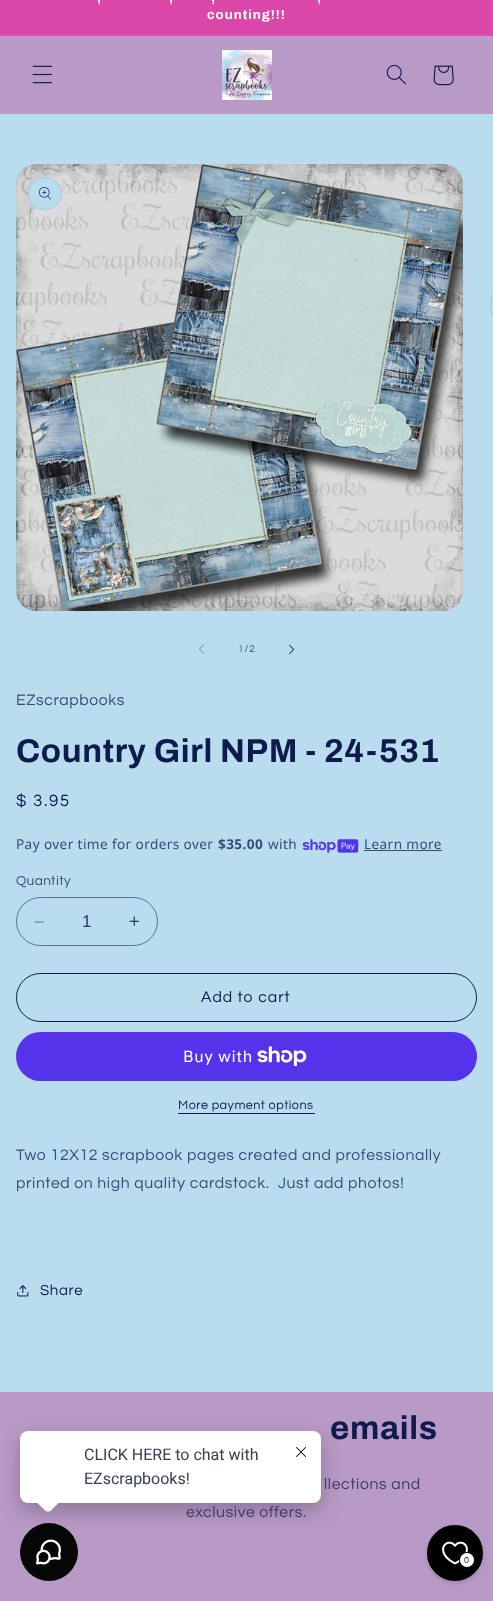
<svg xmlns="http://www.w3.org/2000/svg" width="493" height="1601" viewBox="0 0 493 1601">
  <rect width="100%" height="100%" fill="rgb(185,220,239)"/>
  <rect x="0" y="0" width="493" height="35" fill="rgb(219,71,169)"/>
  <rect x="0" y="35" width="493" height="1" fill="rgb(222,86,176)"/>
  <g font-family="Archivo" font-size="13.25" font-weight="bold" letter-spacing="1" fill="rgb(255,255,255)">
    <text x="97" y="2">,</text>
    <text x="169" y="2">,</text>
    <text x="211" y="2">,</text>
    <text x="317" y="2">,</text>
    <text x="207" y="19">counting!!!</text>
  </g>
  <rect x="0" y="36" width="493" height="78" fill="rgb(185,154,198)"/>
  <image x="32" y="65" width="20" height="19" href="pic1.png"/>
  <image x="222" y="50" width="50" height="50" href="pic2.png"/>
  <image x="386" y="64" width="20" height="21" href="pic3.png"/>
  <image x="433" y="65" width="21" height="21" href="pic4.png"/>
  <image x="16" y="164" width="447" height="447" href="pic5.png"/>
  <rect x="28" y="177" width="34" height="33" rx="16.5" fill="rgb(185,220,239)"/>
  <rect x="28.5" y="177.5" width="33" height="32" rx="16" fill="none" stroke="rgba(14,27,77,0.1)"/>
  <image x="39" y="187" width="12" height="13" href="pic6.png"/>
  <rect x="490.5" y="288.5" width="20" height="33" rx="16" fill="none" stroke="rgb(168,201,223)"/>
  <image x="199" y="644" width="5" height="10" href="pic7.png"/>
  <text x="238" y="652" font-family="Questrial" font-size="10" letter-spacing="1" fill="rgb(57,75,118)">1/2</text>
  <image x="289" y="644" width="6" height="11" href="pic8.png"/>
  <text x="16" y="705" font-family="Questrial" font-size="15.75" letter-spacing="0.63" fill="rgb(57,75,118)">EZscrapbooks</text>
  <text x="16" y="762" font-family="Archivo" font-size="33" font-weight="bold" letter-spacing="0.65" fill="rgb(14,27,77)">Country Girl NPM - 24-531</text>
  <text x="16" y="806" font-family="Questrial" font-size="17" letter-spacing="1.5" fill="rgb(14,27,77)">$ 3.95</text>
  <text x="16" y="849" font-family="Noto Sans" font-size="13.6" letter-spacing="0.4" fill="rgb(57,75,118)">Pay over time for orders over</text>
  <text x="218" y="849" font-family="Noto Sans" font-size="13.6" font-weight="bold" letter-spacing="0.4" fill="rgb(57,75,118)">$35.00</text>
  <text x="268" y="849" font-family="Noto Sans" font-size="13.6" letter-spacing="0.4" fill="rgb(57,75,118)">with</text>
  <image x="302" y="839" width="57" height="14" href="pic9.png"/>
  <text x="364" y="849" font-family="Noto Sans" font-size="13.6" letter-spacing="0.4" fill="rgb(57,75,118)">Learn more</text>
  <rect x="364" y="850" width="78" height="1" fill="rgb(57,75,118)"/>
  <text x="16" y="885" font-family="Questrial" font-size="13.6" letter-spacing="0.4" fill="rgb(57,75,118)">Quantity</text>
  <image x="34" y="921" width="10" height="2" href="pic10.png"/>
  <image x="129" y="916" width="10" height="10" href="pic11.png"/>
  <rect x="16.5" y="897.5" width="141" height="48" rx="24" fill="none" stroke="rgb(91,114,150)"/>
  <text x="82" y="927" font-family="Liberation Sans" font-size="17" fill="rgb(40,56,101)">1</text>
  <rect x="16.5" y="973.5" width="460" height="48" rx="24" fill="none" stroke="rgb(14,27,77)"/>
  <text x="201" y="1002" font-family="Questrial" font-size="15.75" letter-spacing="1" fill="rgb(14,27,77)">Add to cart</text>
  <rect x="16" y="1032" width="461" height="49" rx="24.5" fill="rgb(84,51,235)"/>
  <text x="183" y="1062" font-family="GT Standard" font-size="16" letter-spacing="0.63" fill="rgb(255,255,255)">Buy with</text>
  <image x="257" y="1046" width="50" height="20" href="pic12.png"/>
  <text x="178" y="1109" font-family="Questrial" font-size="12.6" letter-spacing="0.5" fill="rgb(14,27,77)">More payment options</text>
  <rect x="178" y="1113" width="137" height="1" fill="rgb(14,27,77)"/>
  <g font-family="Questrial" font-size="15.75" letter-spacing="0.63" fill="rgb(57,75,118)">
    <text xml:space="preserve"><tspan x="16" y="1160">Two 12X12 scrapbook pages created and professionally</tspan><tspan x="16" y="1188">printed on high quality cardstock.  Just add photos!</tspan></text>
  </g>
  <image x="17" y="1285" width="12" height="12" href="pic13.png"/>
  <text x="40" y="1295" font-family="Questrial" font-size="15" letter-spacing="0.63" fill="rgb(14,27,77)">Share</text>
  <rect x="0" y="1392" width="493" height="209" fill="rgb(185,154,198)"/>
  <circle cx="49" cy="1552" r="29" fill="rgb(7,7,7)"/>
  <image x="36" y="1539" width="25" height="26" href="pic15.png"/>
  <rect x="20" y="1439" width="301" height="72" rx="8" fill="rgba(0,0,0,0.24)" filter="blur(10px)"/>
  <rect x="20" y="1431" width="301" height="72" rx="8" fill="rgb(255,255,255)"/>
  <g font-family="Roboto" font-size="16" fill="rgb(52,64,84)">
    <text>
      <tspan x="84" y="1460">CLICK HERE to chat with</tspan>
      <tspan x="84" y="1484">EZscrapbooks!</tspan>
    </text>
  </g>
  <path d="M51 1487.5L59.5 1496C61 1497.5 61 1500.5 59.5 1502L51 1510.5C49.5 1512 46.5 1512 45 1510.5L36.5 1502C35 1500.5 35 1497.5 36.5 1496L45 1487.5C46.5 1486 49.5 1486 51 1487.5Z" fill="rgb(255,255,255)"/>
  <image x="296" y="1447" width="10" height="10" href="pic14.png"/>
  <text x="330" y="1439" font-family="Archivo" font-size="33" font-weight="bold" letter-spacing="0.65" fill="rgb(14,27,77)">emails</text>
  <g font-family="Questrial" font-size="15.75" letter-spacing="0.63" fill="rgb(57,59,107)">
    <text x="324" y="1489">llections and</text>
    <text x="186" y="1517">exclusive offers.</text>
  </g>
  <rect x="427" y="1527" width="56" height="56" rx="28" fill="rgba(0,0,0,0.15)" filter="blur(2px)"/>
  <circle cx="455" cy="1553" r="27" fill="rgb(0,0,0)" stroke="rgb(0,0,0)" stroke-width="2"/>
  <image x="442" y="1541" width="26" height="24" href="pic16.png"/>
  <circle cx="467" cy="1560" r="7.5" fill="rgb(255,255,255)" stroke="rgb(0,0,0)"/>
  <text x="464" y="1563" font-family="Questrial" font-size="9" letter-spacing="0.63" fill="rgb(0,0,0)">0</text>
</svg>
